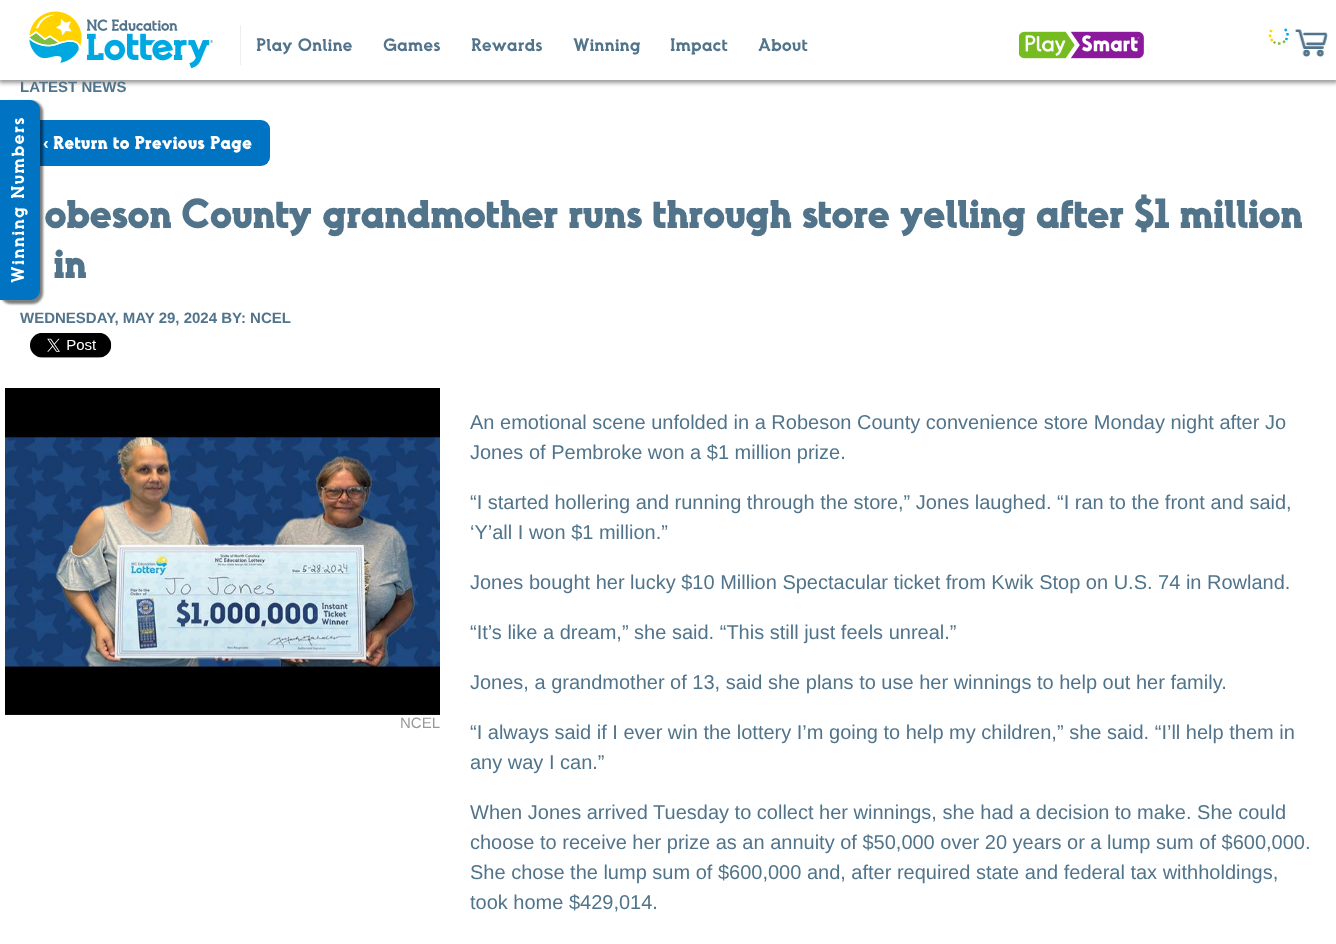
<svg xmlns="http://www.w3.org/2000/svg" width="1336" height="944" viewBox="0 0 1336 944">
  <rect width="100%" height="100%" fill="rgb(255,255,255)"/>
  <rect x="-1" y="0" width="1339" height="83" fill="rgba(0,0,0,0.4)" filter="blur(2px)"/>
  <rect x="0" y="0" width="1336" height="80" fill="rgb(255,255,255)"/>
  <image x="29" y="11" width="184" height="58" href="pic1.png"/>
  <rect x="240" y="25" width="1" height="40" fill="rgb(238,238,238)"/>
  <g font-family="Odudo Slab" font-size="17.25" font-weight="600" fill="rgb(81,116,139)">
    <text x="256" y="51">Play Online</text>
    <text x="383" y="51">Games</text>
    <text x="471" y="51">Rewards</text>
    <text x="573" y="51">Winning</text>
    <text x="670" y="51">Impact</text>
    <text x="758" y="51">About</text>
  </g>
  <image x="1019" y="31" width="125" height="28" href="pic2.png"/>
  <path d="M1285 29L1286.5 31M1287.5 33V35.5M1287 38L1286 40" fill="none" stroke="rgb(0,168,225)" stroke-width="2.5"/>
  <path d="M1285 41L1283 42.5M1280.5 43.5H1278M1275.5 43L1273.5 42" fill="none" stroke="rgb(129,189,65)" stroke-width="2.5"/>
  <path d="M1272.5 41L1271 39M1270 37V34.5M1270.5 32L1271.5 30" fill="none" stroke="rgb(255,210,0)" stroke-width="2.5"/>
  <image x="1294" y="29" width="34" height="28" href="pic3.png"/>
  <rect x="25" y="120" width="245" height="46" rx="9" fill="rgb(0,115,195)"/>
  <rect x="0" y="101" width="43" height="203" rx="11" fill="rgba(0,0,0,0.5)" filter="blur(1px)"/>
  <path d="M0 100H30C35.5 100 40 104.5 40 110V290C40 295.5 35.5 300 30 300H0Z" fill="rgb(0,115,195)"/>
  <text x="24" y="283" transform="rotate(-90 24 283)" font-family="Odudo Slab" font-size="17.5" font-weight="600" letter-spacing="1.25" fill="rgb(255,255,255)">Winning Numbers</text>
  <text x="20" y="92" font-family="Liberation Sans" font-size="15" font-weight="bold" fill="rgb(81,116,139)">LATEST NEWS</text>
  <text x="43" y="149" font-family="Liberation Sans" font-size="17.5" font-weight="bold" fill="rgb(255,255,255)">‹</text>
  <text x="53" y="149" font-family="Odudo Slab" font-size="17.5" font-weight="bold" fill="rgb(255,255,255)">Return to Previous Page</text>
  <g font-family="Odudo Slab" font-size="40" font-weight="bold" letter-spacing="-1.25" fill="rgb(81,116,139)">
    <text x="44" y="228">obeson County grandmother runs through store yelling after $1 million</text>
    <text x="53" y="278">in</text>
  </g>
  <text x="20" y="323" font-family="Liberation Sans" font-size="15" font-weight="bold" fill="rgb(81,116,139)">WEDNESDAY, MAY 29, 2024 BY: NCEL</text>
  <image x="30" y="333" width="82" height="25" href="pic4.png"/>
  <image x="5" y="388" width="435" height="327" href="pic5.png"/>
  <text x="400" y="728" font-family="Liberation Sans" font-size="15" fill="rgb(153,153,153)">NCEL</text>
  <g font-family="Liberation Sans" font-size="20" fill="rgb(81,116,139)">
    <text>
      <tspan x="470" y="429">An emotional scene unfolded in a Robeson County convenience store Monday night after Jo</tspan>
      <tspan x="470" y="459">Jones of Pembroke won a $1 million prize.</tspan>
    </text>
    <text>
      <tspan x="470" y="509">“I started hollering and running through the store,” Jones laughed. “I ran to the front and said,</tspan>
      <tspan x="470" y="539">‘Y’all I won $1 million.”</tspan>
    </text>
    <text x="470" y="589">Jones bought her lucky $10 Million Spectacular ticket from Kwik Stop on U.S. 74 in Rowland.</text>
    <text x="470" y="639">“It’s like a dream,” she said. “This still just feels unreal.”</text>
    <text x="470" y="689">Jones, a grandmother of 13, said she plans to use her winnings to help out her family.</text>
    <text>
      <tspan x="470" y="739">“I always said if I ever win the lottery I’m going to help my children,” she said. “I’ll help them in</tspan>
      <tspan x="470" y="769">any way I can.”</tspan>
    </text>
    <text>
      <tspan x="470" y="819">When Jones arrived Tuesday to collect her winnings, she had a decision to make. She could</tspan>
      <tspan x="470" y="849">choose to receive her prize as an annuity of $50,000 over 20 years or a lump sum of $600,000.</tspan>
      <tspan x="470" y="879">She chose the lump sum of $600,000 and, after required state and federal tax withholdings,</tspan>
      <tspan x="470" y="909">took home $429,014.</tspan>
    </text>
  </g>
</svg>
